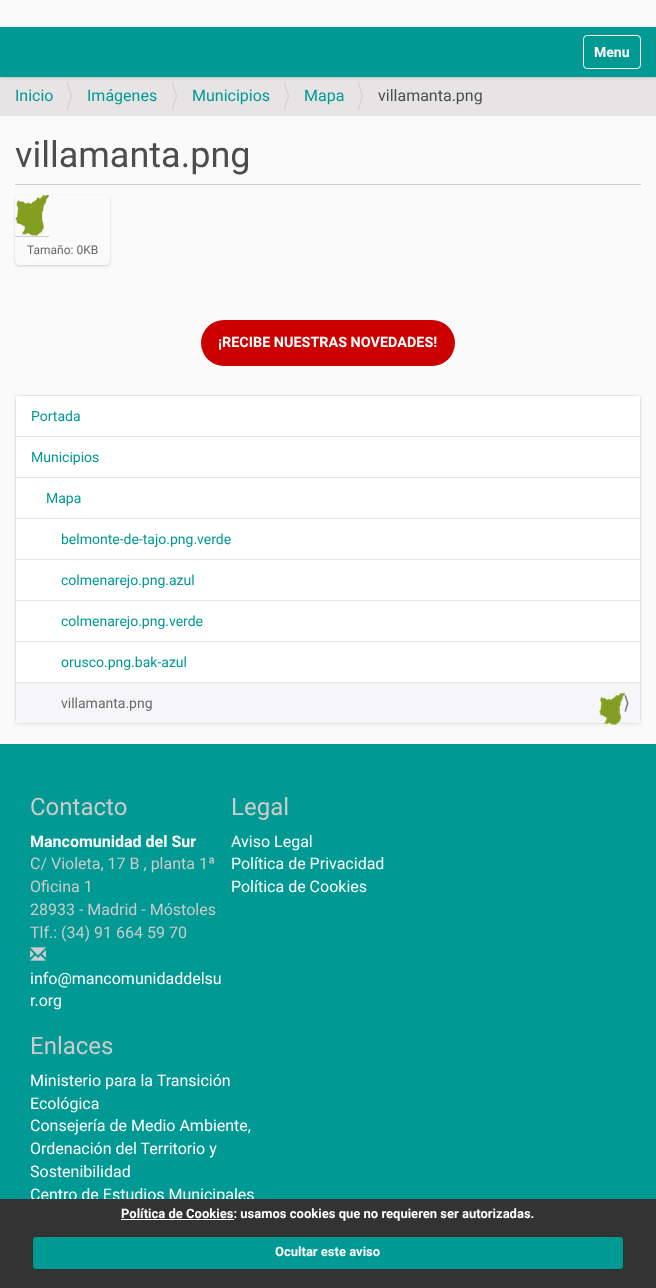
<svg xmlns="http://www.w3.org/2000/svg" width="656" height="1288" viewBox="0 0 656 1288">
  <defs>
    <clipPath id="clip1"><path d="M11 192H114V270H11ZM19 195H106C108 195 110 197 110 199V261C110 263 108 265 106 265H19C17 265 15 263 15 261V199C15 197 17 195 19 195Z" clip-rule="evenodd"/></clipPath>
  </defs>
  <rect width="100%" height="100%" fill="rgb(250,250,250)"/>
  <rect x="0" y="77" width="656" height="39" fill="rgb(230,228,228)"/>
  <rect x="0" y="28" width="656" height="50" fill="rgba(0,0,0,0.17)" filter="blur(1.5px)"/>
  <rect x="0" y="27" width="656" height="50" fill="rgb(0,153,147)"/>
  <rect x="583.5" y="35.5" width="57" height="33" rx="3.5" fill="none" stroke="rgb(255,255,255)"/>
  <text x="594" y="57" font-family="Roboto" font-size="14" font-weight="bold" fill="rgb(255,255,255)">Menu</text>
  <text x="15" y="101" font-family="Roboto" font-size="16" fill="rgb(0,153,147)">Inicio</text>
  <path d="M67 111V81L72 96Z" fill="rgb(204,204,204)"/>
  <path d="M66 111V81L71 96Z" fill="rgb(230,228,228)"/>
  <text x="87" y="101" font-family="Roboto" font-size="16" fill="rgb(0,153,147)">Imágenes</text>
  <path d="M172 111V81L177 96Z" fill="rgb(204,204,204)"/>
  <path d="M171 111V81L176 96Z" fill="rgb(230,228,228)"/>
  <text x="192" y="101" font-family="Roboto" font-size="16" fill="rgb(0,153,147)">Municipios</text>
  <path d="M284 111V81L289 96Z" fill="rgb(204,204,204)"/>
  <path d="M283 111V81L288 96Z" fill="rgb(230,228,228)"/>
  <text x="304" y="101" font-family="Roboto" font-size="16" fill="rgb(0,153,147)">Mapa</text>
  <path d="M358 111V81L363 96Z" fill="rgb(204,204,204)"/>
  <path d="M357 111V81L362 96Z" fill="rgb(230,228,228)"/>
  <text x="378" y="101" font-family="Roboto" font-size="16" fill="rgb(77,77,77)">villamanta.png</text>
  <rect x="15" y="184" width="626" height="1" fill="rgb(204,204,204)"/>
  <text x="15" y="167" font-family="Roboto" font-size="36" fill="rgb(77,77,77)">villamanta.png</text>
  <g clip-path="url(#clip1)">
    <rect x="15" y="196" width="95" height="70" rx="4" fill="rgba(0,0,0,0.17)" filter="blur(1px)"/>
  </g>
  <rect x="15" y="236" width="34" height="1" fill="rgb(204,204,204)"/>
  <image x="15" y="195" width="34" height="41" href="pic1.png"/>
  <rect x="27" y="242" width="71" height="17" fill="rgb(252,252,253)"/>
  <text x="27" y="254" font-family="Roboto" font-size="12" fill="rgb(105,105,105)">Tamaño: 0KB</text>
  <rect x="201" y="320" width="254" height="46" rx="23" fill="rgb(204,0,0)"/>
  <text x="218" y="347" font-family="Roboto" font-size="14.4" font-weight="bold" fill="rgb(255,255,255)">¡RECIBE NUESTRAS NOVEDADES!</text>
  <rect x="15" y="396" width="626" height="329" rx="4" fill="rgba(0,0,0,0.05)" filter="blur(1.5px)"/>
  <rect x="15.5" y="395.5" width="625" height="328" rx="3.5" fill="none" stroke="rgb(229,229,229)"/>
  <rect x="16" y="396" width="624" height="286" fill="rgb(255,255,255)"/>
  <text x="31" y="421" font-family="Roboto" font-size="14" fill="rgb(0,153,147)">Portada</text>
  <rect x="16" y="436" width="624" height="1" fill="rgb(229,229,229)"/>
  <text x="31" y="462" font-family="Roboto" font-size="14" fill="rgb(0,153,147)">Municipios</text>
  <rect x="16" y="477" width="624" height="1" fill="rgb(229,229,229)"/>
  <text x="46" y="503" font-family="Roboto" font-size="14" fill="rgb(0,153,147)">Mapa</text>
  <rect x="16" y="518" width="624" height="1" fill="rgb(229,229,229)"/>
  <text x="61" y="544" font-family="Roboto" font-size="14" fill="rgb(0,153,147)">belmonte-de-tajo.png.verde</text>
  <rect x="16" y="559" width="624" height="1" fill="rgb(229,229,229)"/>
  <text x="61" y="585" font-family="Roboto" font-size="14" fill="rgb(0,153,147)">colmenarejo.png.azul</text>
  <rect x="16" y="600" width="624" height="1" fill="rgb(229,229,229)"/>
  <text x="61" y="626" font-family="Roboto" font-size="14" fill="rgb(0,153,147)">colmenarejo.png.verde</text>
  <rect x="16" y="641" width="624" height="1" fill="rgb(229,229,229)"/>
  <text x="61" y="667" font-family="Roboto" font-size="14" fill="rgb(0,153,147)">orusco.png.bak-azul</text>
  <rect x="16" y="683" width="624" height="40" fill="rgb(246,246,249)"/>
  <rect x="16" y="682" width="624" height="1" fill="rgb(229,229,229)"/>
  <text x="61" y="708" font-family="Roboto" font-size="14" fill="rgb(105,105,105)">villamanta.png</text>
  <image x="599" y="693" width="26" height="32" href="pic2.png"/>
  <text x="623" y="709" font-family="DejaVu Sans" font-size="18" fill="rgb(119,119,119)">⟩</text>
  <rect x="0" y="744" width="656" height="455" fill="rgb(0,153,147)"/>
  <text x="30" y="815" font-family="Roboto" font-size="24" fill="rgb(204,204,204)">Contacto</text>
  <text x="30" y="847" font-family="Roboto" font-size="16" font-weight="bold" fill="rgb(255,255,255)">Mancomunidad del Sur</text>
  <g font-family="Roboto" font-size="16" fill="rgb(204,204,204)">
    <text>
      <tspan x="30" y="869">C/ Violeta, 17 B , planta 1ª</tspan>
      <tspan x="30" y="892">Oficina 1</tspan>
      <tspan x="30" y="915">28933 - Madrid - Móstoles</tspan>
      <tspan x="30" y="938">Tlf.: (34) 91 664 59 70</tspan>
    </text>
  </g>
  <image x="30" y="947" width="16" height="14" href="pic3.png"/>
  <g font-family="Roboto" font-size="16" fill="rgb(255,255,255)">
    <text>
      <tspan x="30" y="984">info@mancomunidaddelsu</tspan>
      <tspan x="30" y="1006">r.org</tspan>
    </text>
  </g>
  <text x="231" y="815" font-family="Roboto" font-size="24" fill="rgb(204,204,204)">Legal</text>
  <g font-family="Roboto" font-size="16" fill="rgb(255,255,255)">
    <text>
      <tspan x="231" y="847">Aviso Legal</tspan>
      <tspan x="231" y="869">Política de Privacidad</tspan>
      <tspan x="231" y="892">Política de Cookies</tspan>
    </text>
  </g>
  <text x="30" y="1054" font-family="Roboto" font-size="24" fill="rgb(204,204,204)">Enlaces</text>
  <g font-family="Roboto" font-size="16" fill="rgb(255,255,255)">
    <text>
      <tspan x="30" y="1086">Ministerio para la Transición</tspan>
      <tspan x="30" y="1109">Ecológica</tspan>
      <tspan x="30" y="1131">Consejería de Medio Ambiente,</tspan>
      <tspan x="30" y="1154">Ordenación del Territorio y</tspan>
      <tspan x="30" y="1177">Sostenibilidad</tspan>
      <tspan x="30" y="1200">Centro de Estudios Municipales</tspan>
    </text>
  </g>
  <rect x="0" y="1199" width="656" height="89" fill="rgb(51,51,51)"/>
  <rect x="121" y="1219" width="113" height="1" fill="rgb(255,255,255)"/>
  <text x="121" y="1218" font-family="Roboto" font-size="13" font-weight="bold" fill="rgb(255,255,255)">Política de Cookies: usamos cookies que no requieren ser autorizadas.</text>
  <rect x="33" y="1237" width="590" height="32" rx="3" fill="rgba(0,0,0,0.25)" filter="blur(1px)"/>
  <rect x="33" y="1237" width="590" height="32" rx="3" fill="rgb(0,153,147)"/>
  <text x="275" y="1256" font-family="Roboto" font-size="13" font-weight="bold" fill="rgb(255,255,255)">Ocultar este aviso</text>
</svg>
